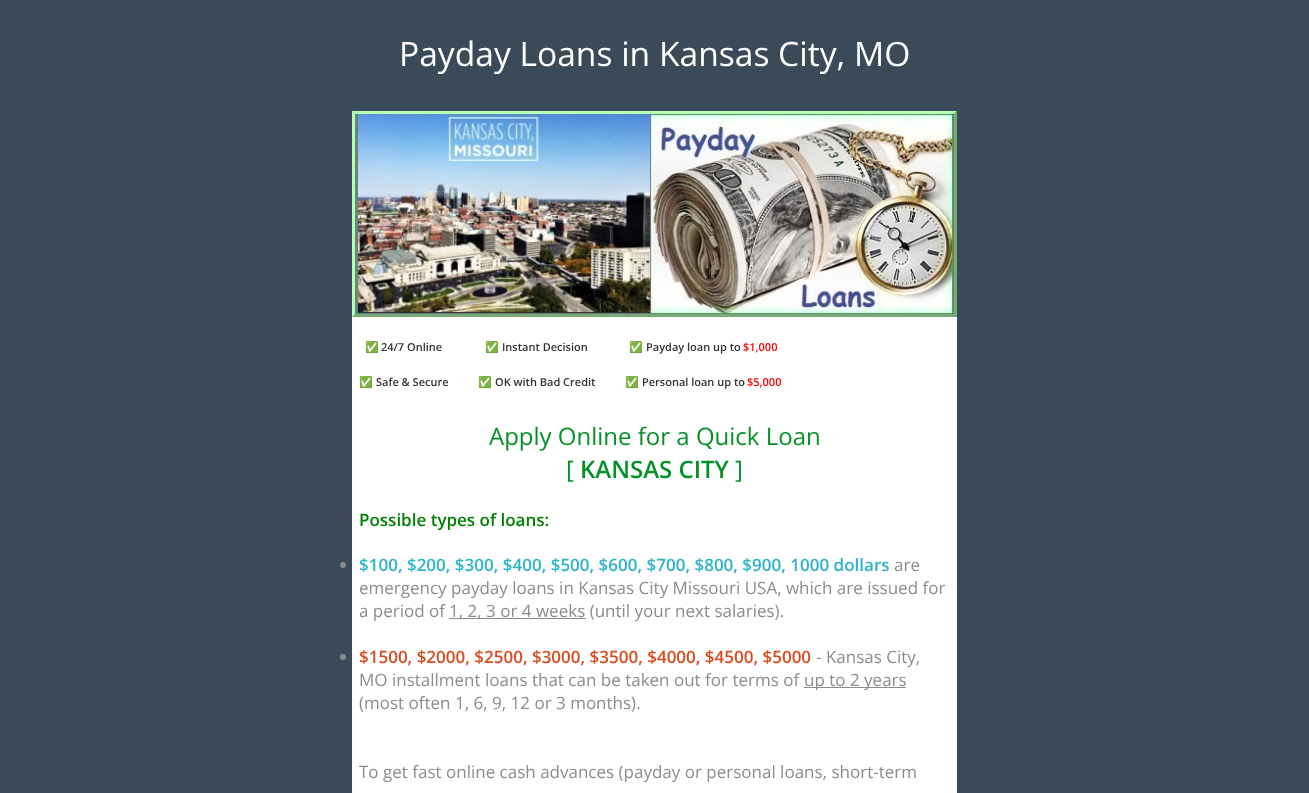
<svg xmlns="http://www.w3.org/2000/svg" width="1309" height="793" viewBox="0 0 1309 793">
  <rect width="100%" height="100%" fill="rgb(58,74,88)"/>
  <text x="399" y="66" font-family="Open Sans" font-size="33.6" fill="rgb(255,255,255)">Payday Loans in Kansas City, MO</text>
  <rect x="352" y="317" width="605" height="476" fill="rgb(255,255,255)"/>
  <image x="352" y="111" width="605" height="206" href="pic1.png"/>
  <path d="M352 111H957L954 114H355Z" fill="rgb(179,255,179)"/>
  <path d="M957 111V317L954 314V114Z" fill="rgb(119,170,119)"/>
  <path d="M957 317H352L355 314H954Z" fill="rgb(119,170,119)"/>
  <path d="M352 317V111L355 114V314Z" fill="rgb(179,255,179)"/>
  <text x="365" y="351" font-family="Noto Color Emoji" font-size="11" fill="rgb(51,51,51)">✅</text>
  <text x="381" y="351" font-family="Open Sans" font-size="11" font-weight="600" fill="rgb(51,51,51)">24/7 Online</text>
  <text x="359" y="386" font-family="Noto Color Emoji" font-size="11" fill="rgb(51,51,51)">✅</text>
  <text x="376" y="386" font-family="Open Sans" font-size="11" font-weight="600" fill="rgb(51,51,51)">Safe &amp; Secure</text>
  <text x="485" y="351" font-family="Noto Color Emoji" font-size="11" fill="rgb(51,51,51)">✅</text>
  <text x="502" y="351" font-family="Open Sans" font-size="11" font-weight="600" fill="rgb(51,51,51)">Instant Decision</text>
  <text x="478" y="386" font-family="Noto Color Emoji" font-size="11" fill="rgb(51,51,51)">✅</text>
  <text x="495" y="386" font-family="Open Sans" font-size="11" font-weight="600" fill="rgb(51,51,51)">OK with Bad Credit</text>
  <text x="629" y="351" font-family="Noto Color Emoji" font-size="11" fill="rgb(51,51,51)">✅</text>
  <text x="646" y="351" font-family="Open Sans" font-size="11" font-weight="600" fill="rgb(51,51,51)">Payday loan up to</text>
  <text x="743" y="351" font-family="Open Sans" font-size="11" font-weight="600" fill="rgb(255,0,0)">$1,000</text>
  <text x="625" y="386" font-family="Noto Color Emoji" font-size="11" fill="rgb(51,51,51)">✅</text>
  <text x="642" y="386" font-family="Open Sans" font-size="11" font-weight="600" fill="rgb(51,51,51)">Personal loan up to</text>
  <text x="747" y="386" font-family="Open Sans" font-size="11" font-weight="600" fill="rgb(255,0,0)">$5,000</text>
  <g font-family="Open Sans" font-size="24" fill="rgb(4,146,38)">
    <text x="489" y="445">Apply Online for a Quick Loan</text>
    <text x="566" y="478">[</text>
  </g>
  <text x="580" y="478" font-family="Open Sans" font-size="24" font-weight="600" fill="rgb(4,146,38)">KANSAS CITY</text>
  <text x="735" y="478" font-family="Open Sans" font-size="24" fill="rgb(4,146,38)">]</text>
  <text x="359" y="526" font-family="Open Sans" font-size="17" font-weight="600" fill="rgb(0,128,0)">Possible types of loans:</text>
  <circle cx="343" cy="565" r="3" fill="rgb(140,140,140)"/>
  <text x="359" y="571" font-family="Open Sans" font-size="17" font-weight="600" fill="rgb(44,180,202)">$100, $200, $300, $400, $500, $600, $700, $800, $900, 1000 dollars</text>
  <g font-family="Open Sans" font-size="17" fill="rgb(140,140,140)">
    <text x="894" y="571">are</text>
    <text>
      <tspan x="359" y="594">emergency payday loans in Kansas City Missouri USA, which are issued for</tspan>
      <tspan x="359" y="617">a period of</tspan>
    </text>
  </g>
  <rect x="449" y="618" width="137" height="1" fill="rgb(140,140,140)"/>
  <text x="449" y="617" font-family="Open Sans" font-size="17" fill="rgb(140,140,140)">1, 2, 3 or 4 weeks (until your next salaries).</text>
  <circle cx="343" cy="657" r="3" fill="rgb(140,140,140)"/>
  <text x="359" y="663" font-family="Open Sans" font-size="17" font-weight="600" fill="rgb(218,76,30)">$1500, $2000, $2500, $3000, $3500, $4000, $4500, $5000</text>
  <g font-family="Open Sans" font-size="17" fill="rgb(140,140,140)">
    <text x="816" y="663">- Kansas City,</text>
    <text x="359" y="686">MO installment loans that can be taken out for terms of</text>
  </g>
  <rect x="804" y="687" width="102" height="1" fill="rgb(140,140,140)"/>
  <g font-family="Open Sans" font-size="17" fill="rgb(140,140,140)">
    <text x="804" y="686">up to 2 years</text>
    <text x="359" y="709">(most often 1, 6, 9, 12 or 3 months).</text>
    <text x="359" y="778">To get fast online cash advances (payday or personal loans, short-term</text>
  </g>
</svg>
